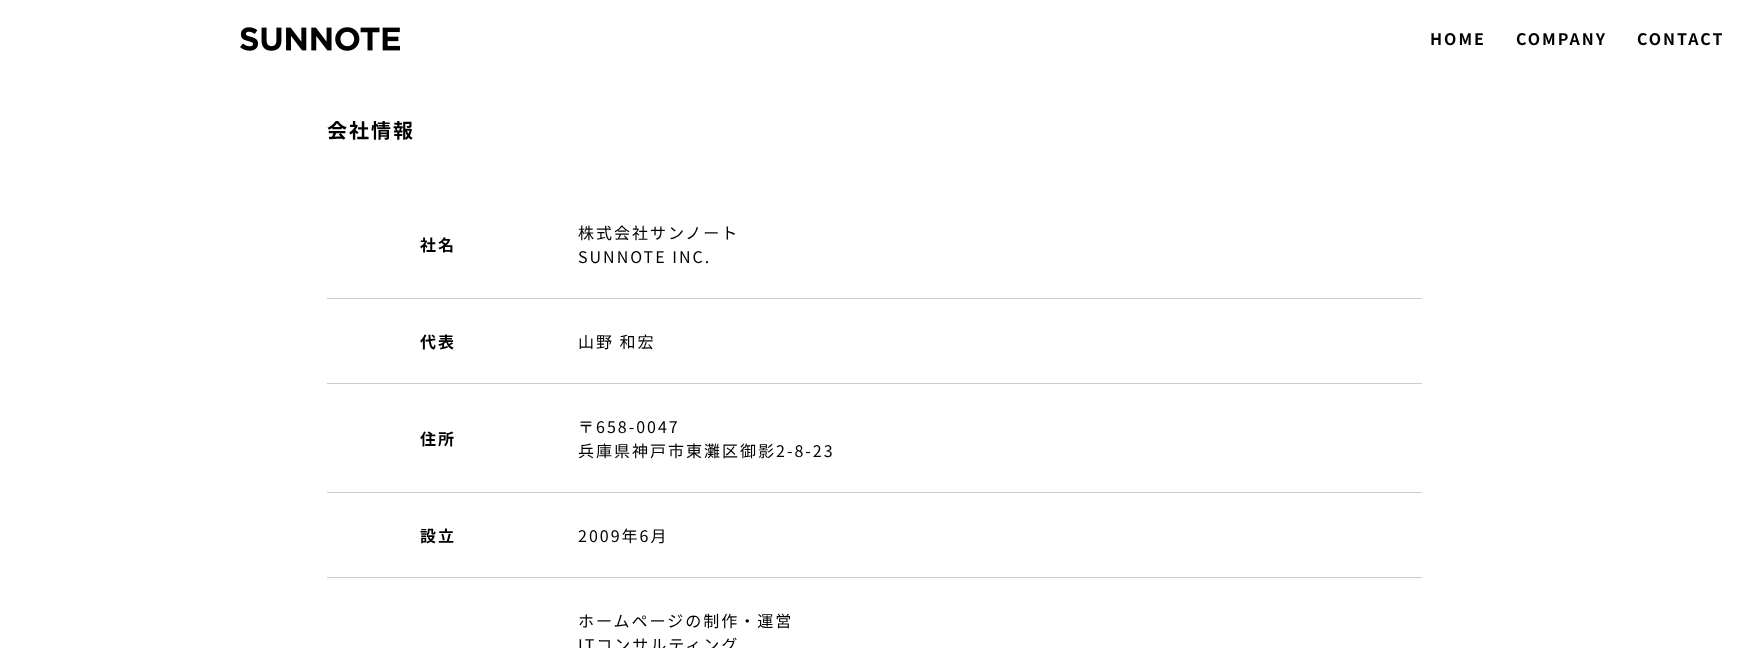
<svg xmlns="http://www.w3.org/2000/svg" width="1749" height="648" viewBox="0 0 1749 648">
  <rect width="100%" height="100%" fill="rgb(255,255,255)"/>
  <image x="240" y="27" width="160" height="24" href="pic1.png"/>
  <g font-family="Noto Sans JP" font-size="16" font-weight="100" letter-spacing="2" fill="rgb(0,0,0)">
    <text x="1430" y="45">HOME</text>
    <text x="1516" y="45">COMPANY</text>
    <text x="1637" y="45">CONTACT</text>
  </g>
  <text x="327" y="138" font-family="Noto Sans JP" font-size="20" font-weight="100" letter-spacing="2" fill="rgb(0,0,0)">会社情報</text>
  <rect x="327" y="298" width="1095" height="1" fill="rgb(204,204,204)"/>
  <text x="420" y="251" font-family="Noto Sans JP" font-size="16" font-weight="100" letter-spacing="2" fill="rgb(0,0,0)">社名</text>
  <g font-family="'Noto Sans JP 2'" font-size="16" font-weight="100" letter-spacing="2" fill="rgb(0,0,0)">
    <text>
      <tspan x="578" y="239">株式会社サンノート</tspan>
      <tspan x="578" y="263">SUNNOTE INC.</tspan>
    </text>
  </g>
  <rect x="327" y="383" width="1095" height="1" fill="rgb(204,204,204)"/>
  <text x="420" y="348" font-family="Noto Sans JP" font-size="16" font-weight="100" letter-spacing="2" fill="rgb(0,0,0)">代表</text>
  <text x="578" y="348" font-family="'Noto Sans JP 2'" font-size="16" font-weight="100" letter-spacing="2" fill="rgb(0,0,0)">山野 和宏</text>
  <rect x="327" y="492" width="1095" height="1" fill="rgb(204,204,204)"/>
  <text x="420" y="445" font-family="Noto Sans JP" font-size="16" font-weight="100" letter-spacing="2" fill="rgb(0,0,0)">住所</text>
  <g font-family="'Noto Sans JP 2'" font-size="16" font-weight="100" letter-spacing="2" fill="rgb(0,0,0)">
    <text>
      <tspan x="578" y="433">〒658-0047</tspan>
      <tspan x="578" y="457">兵庫県神戸市東灘区御影2-8-23</tspan>
    </text>
  </g>
  <rect x="327" y="577" width="1095" height="1" fill="rgb(204,204,204)"/>
  <text x="420" y="542" font-family="Noto Sans JP" font-size="16" font-weight="100" letter-spacing="2" fill="rgb(0,0,0)">設立</text>
  <g font-family="'Noto Sans JP 2'" font-size="16" font-weight="100" letter-spacing="2" fill="rgb(0,0,0)">
    <text x="578" y="542">2009年6月</text>
    <text>
      <tspan x="578" y="627">ホームページの制作・運営</tspan>
      <tspan x="578" y="651">ITコンサルティング</tspan>
    </text>
  </g>
</svg>
